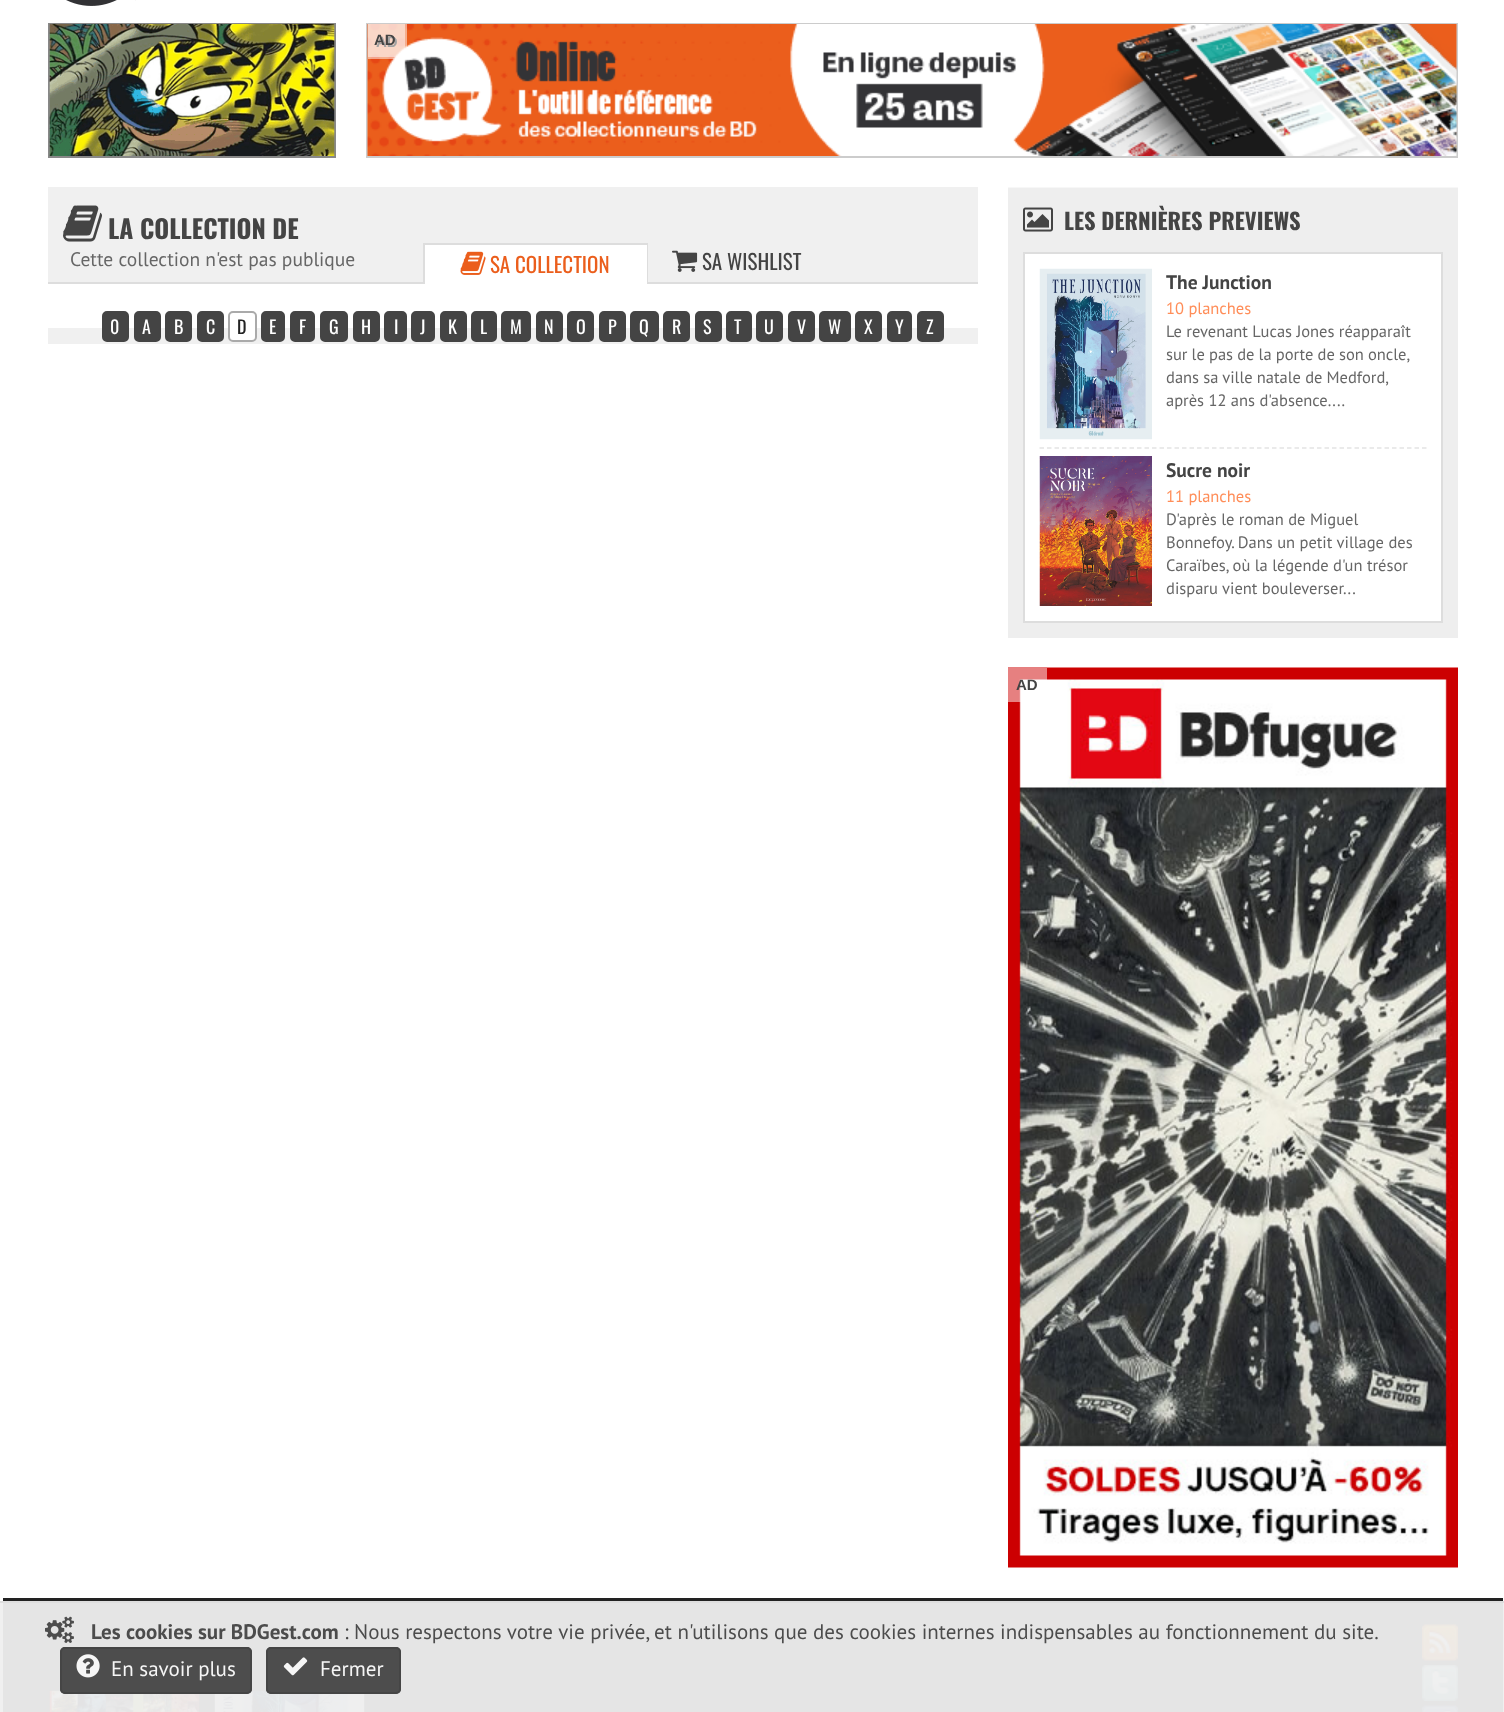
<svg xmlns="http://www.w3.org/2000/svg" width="1504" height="1712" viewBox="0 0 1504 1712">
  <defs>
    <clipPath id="clip1"><rect x="71" y="248" width="735" height="27"/></clipPath>
  </defs>
  <rect width="100%" height="100%" fill="rgb(255,255,255)"/>
  <rect x="0" y="1603" width="1504" height="109" fill="rgb(240,240,240)"/>
  <rect x="0" y="1601" width="1504" height="2" fill="rgb(222,222,222)"/>
  <image x="66" y="0" width="70" height="6" href="pic1.png"/>
  <rect x="49" y="24" width="286" height="133" fill="none" stroke="rgb(136,136,136)" stroke-width="2"/>
  <image x="49" y="24" width="286" height="132" href="pic2.png"/>
  <rect x="367" y="24" width="1090" height="133" fill="none" stroke="rgb(204,204,204)" stroke-width="2"/>
  <image x="367" y="24" width="1090" height="132" href="pic3.png"/>
  <path d="M368 24H407V51C407 55.5 403.5 59 399 59H368Z" fill="rgba(255,255,255,0.5)"/>
  <text x="376" y="47" font-family="Liberation Sans" font-size="15" font-weight="bold" fill="rgb(68,68,68)">AD</text>
  <path d="M368 24H405V49C405 53.5 401.5 57 397 57H368Z" fill="rgba(255,255,255,0.5)"/>
  <text x="374" y="45" font-family="Liberation Sans" font-size="15" font-weight="bold" fill="rgb(68,68,68)">AD</text>
  <rect x="48" y="187" width="930" height="95" fill="rgb(240,240,240)"/>
  <rect x="48" y="282" width="930" height="2" fill="rgb(221,221,221)"/>
  <image x="63" y="205" width="39" height="37" href="pic4.png"/>
  <text x="108" y="239" font-family="Oswald" font-size="25.5" font-weight="bold" fill="rgb(68,68,68)">LA COLLECTION DE</text>
  <g clip-path="url(#clip1)">
    <text x="70" y="266" font-family="PT Sans" font-size="19.5" fill="rgb(102,102,102)">Cette collection n'est pas publique</text>
  </g>
  <rect x="425" y="245" width="222" height="39" fill="rgb(255,255,255)"/>
  <rect x="423" y="243" width="225" height="2" fill="rgb(221,221,221)"/>
  <rect x="647" y="243" width="1" height="41" fill="rgb(221,221,221)"/>
  <rect x="423" y="243" width="2" height="41" fill="rgb(221,221,221)"/>
  <image x="460" y="251" width="26" height="24" href="pic5.png"/>
  <text x="490" y="273" font-family="Oswald" font-size="21" fill="rgb(235,94,28)">SA COLLECTION</text>
  <image x="672" y="250" width="26" height="22" href="pic6.png"/>
  <text x="702" y="270" font-family="Oswald" font-size="21" fill="rgb(68,68,68)">SA WISHLIST</text>
  <rect x="48" y="328" width="930" height="16" fill="rgb(240,240,240)"/>
  <rect x="103" y="312" width="25" height="29" rx="4" fill="rgb(68,68,68)" stroke="rgb(68,68,68)" stroke-width="2"/>
  <text x="110" y="334" font-family="Oswald" font-size="18" fill="rgb(255,255,255)">0</text>
  <rect x="135" y="312" width="25" height="29" rx="4" fill="rgb(68,68,68)" stroke="rgb(68,68,68)" stroke-width="2"/>
  <text x="142" y="334" font-family="Oswald" font-size="18" fill="rgb(255,255,255)">A</text>
  <rect x="166" y="312" width="25" height="29" rx="4" fill="rgb(68,68,68)" stroke="rgb(68,68,68)" stroke-width="2"/>
  <text x="174" y="334" font-family="Oswald" font-size="18" fill="rgb(255,255,255)">B</text>
  <rect x="198" y="312" width="25" height="29" rx="4" fill="rgb(68,68,68)" stroke="rgb(68,68,68)" stroke-width="2"/>
  <text x="206" y="334" font-family="Oswald" font-size="18" fill="rgb(255,255,255)">C</text>
  <rect x="229" y="312" width="27" height="29" rx="4" fill="rgb(255,255,255)" stroke="rgb(170,170,170)" stroke-width="2"/>
  <text x="237" y="334" font-family="Oswald" font-size="18" fill="rgb(34,34,34)">D</text>
  <rect x="262" y="312" width="22" height="29" rx="4" fill="rgb(68,68,68)" stroke="rgb(68,68,68)" stroke-width="2"/>
  <text x="269" y="334" font-family="Oswald" font-size="18" fill="rgb(255,255,255)">E</text>
  <rect x="291" y="312" width="23" height="29" rx="4" fill="rgb(68,68,68)" stroke="rgb(68,68,68)" stroke-width="2"/>
  <text x="299" y="334" font-family="Oswald" font-size="18" fill="rgb(255,255,255)">F</text>
  <rect x="321" y="312" width="26" height="29" rx="4" fill="rgb(68,68,68)" stroke="rgb(68,68,68)" stroke-width="2"/>
  <text x="329" y="334" font-family="Oswald" font-size="18" fill="rgb(255,255,255)">G</text>
  <rect x="354" y="312" width="25" height="29" rx="4" fill="rgb(68,68,68)" stroke="rgb(68,68,68)" stroke-width="2"/>
  <text x="361" y="334" font-family="Oswald" font-size="18" fill="rgb(255,255,255)">H</text>
  <rect x="385" y="312" width="21" height="29" rx="4" fill="rgb(68,68,68)" stroke="rgb(68,68,68)" stroke-width="2"/>
  <text x="394" y="334" font-family="Oswald" font-size="18" fill="rgb(255,255,255)">I</text>
  <rect x="412" y="312" width="22" height="29" rx="4" fill="rgb(68,68,68)" stroke="rgb(68,68,68)" stroke-width="2"/>
  <text x="420" y="334" font-family="Oswald" font-size="18" fill="rgb(255,255,255)">J</text>
  <rect x="441" y="312" width="25" height="29" rx="4" fill="rgb(68,68,68)" stroke="rgb(68,68,68)" stroke-width="2"/>
  <text x="448" y="334" font-family="Oswald" font-size="18" fill="rgb(255,255,255)">K</text>
  <rect x="472" y="312" width="24" height="29" rx="4" fill="rgb(68,68,68)" stroke="rgb(68,68,68)" stroke-width="2"/>
  <text x="480" y="334" font-family="Oswald" font-size="18" fill="rgb(255,255,255)">L</text>
  <rect x="502" y="312" width="28" height="29" rx="4" fill="rgb(68,68,68)" stroke="rgb(68,68,68)" stroke-width="2"/>
  <text x="510" y="334" font-family="Oswald" font-size="18" fill="rgb(255,255,255)">M</text>
  <rect x="537" y="312" width="25" height="29" rx="4" fill="rgb(68,68,68)" stroke="rgb(68,68,68)" stroke-width="2"/>
  <text x="544" y="334" font-family="Oswald" font-size="18" fill="rgb(255,255,255)">N</text>
  <rect x="568" y="312" width="25" height="29" rx="4" fill="rgb(68,68,68)" stroke="rgb(68,68,68)" stroke-width="2"/>
  <text x="576" y="334" font-family="Oswald" font-size="18" fill="rgb(255,255,255)">O</text>
  <rect x="600" y="312" width="25" height="29" rx="4" fill="rgb(68,68,68)" stroke="rgb(68,68,68)" stroke-width="2"/>
  <text x="608" y="334" font-family="Oswald" font-size="18" fill="rgb(255,255,255)">P</text>
  <rect x="631" y="312" width="27" height="29" rx="4" fill="rgb(68,68,68)" stroke="rgb(68,68,68)" stroke-width="2"/>
  <text x="639" y="334" font-family="Oswald" font-size="18" fill="rgb(255,255,255)">Q</text>
  <rect x="664" y="312" width="25" height="29" rx="4" fill="rgb(68,68,68)" stroke="rgb(68,68,68)" stroke-width="2"/>
  <text x="672" y="334" font-family="Oswald" font-size="18" fill="rgb(255,255,255)">R</text>
  <rect x="696" y="312" width="25" height="29" rx="4" fill="rgb(68,68,68)" stroke="rgb(68,68,68)" stroke-width="2"/>
  <text x="703" y="334" font-family="Oswald" font-size="18" fill="rgb(255,255,255)">S</text>
  <rect x="727" y="312" width="24" height="29" rx="4" fill="rgb(68,68,68)" stroke="rgb(68,68,68)" stroke-width="2"/>
  <text x="734" y="334" font-family="Oswald" font-size="18" fill="rgb(255,255,255)">T</text>
  <rect x="757" y="312" width="25" height="29" rx="4" fill="rgb(68,68,68)" stroke="rgb(68,68,68)" stroke-width="2"/>
  <text x="764" y="334" font-family="Oswald" font-size="18" fill="rgb(255,255,255)">U</text>
  <rect x="789" y="312" width="25" height="29" rx="4" fill="rgb(68,68,68)" stroke="rgb(68,68,68)" stroke-width="2"/>
  <text x="797" y="334" font-family="Oswald" font-size="18" fill="rgb(255,255,255)">V</text>
  <rect x="820" y="312" width="30" height="29" rx="4" fill="rgb(68,68,68)" stroke="rgb(68,68,68)" stroke-width="2"/>
  <text x="828" y="334" font-family="Oswald" font-size="18" fill="rgb(255,255,255)">W</text>
  <rect x="856" y="312" width="25" height="29" rx="4" fill="rgb(68,68,68)" stroke="rgb(68,68,68)" stroke-width="2"/>
  <text x="864" y="334" font-family="Oswald" font-size="18" fill="rgb(255,255,255)">X</text>
  <rect x="888" y="312" width="23" height="29" rx="4" fill="rgb(68,68,68)" stroke="rgb(68,68,68)" stroke-width="2"/>
  <text x="895" y="334" font-family="Oswald" font-size="18" fill="rgb(255,255,255)">Y</text>
  <rect x="918" y="312" width="25" height="29" rx="4" fill="rgb(68,68,68)" stroke="rgb(68,68,68)" stroke-width="2"/>
  <text x="926" y="334" font-family="Oswald" font-size="18" fill="rgb(255,255,255)">Z</text>
  <rect x="1008" y="188" width="450" height="450" fill="rgb(238,238,238)"/>
  <rect x="1008" y="187" width="450" height="1" fill="rgb(247,247,247)"/>
  <image x="1023" y="207" width="30" height="25" href="pic7.png"/>
  <text x="1064" y="230" font-family="Oswald" font-size="22.5" font-weight="bold" fill="rgb(68,68,68)">LES DERNIÈRES PREVIEWS</text>
  <rect x="1024" y="253" width="418" height="369" fill="rgb(255,255,255)" stroke="rgb(221,221,221)" stroke-width="2"/>
  <path d="M1039.5 448H1426.5" fill="none" stroke="rgb(228,228,228)" stroke-width="1.5" stroke-dasharray="4.5 3"/>
  <image x="1039" y="268" width="113" height="172" href="pic8.png"/>
  <text x="1166" y="289" font-family="PT Sans" font-size="19.5" font-weight="bold" fill="rgb(68,68,68)">The Junction</text>
  <text x="1166" y="314" font-family="PT Sans" font-size="16.5" fill="rgb(255,141,88)">10 planches</text>
  <g font-family="PT Sans" font-size="16.5" fill="rgb(102,102,102)">
    <text>
      <tspan x="1166" y="337">Le revenant Lucas Jones réapparaît</tspan>
      <tspan x="1166" y="360" word-spacing="-0.25">sur le pas de la porte de son oncle,</tspan>
      <tspan x="1166" y="383" word-spacing="-0.25">dans sa ville natale de Medford,</tspan>
      <tspan x="1166" y="406">après 12 ans d'absence....</tspan>
    </text>
  </g>
  <image x="1039" y="456" width="113" height="150" href="pic9.png"/>
  <text x="1166" y="477" font-family="PT Sans" font-size="19.5" font-weight="bold" fill="rgb(68,68,68)">Sucre noir</text>
  <text x="1166" y="502" font-family="PT Sans" font-size="16.5" fill="rgb(255,141,88)">11 planches</text>
  <g font-family="PT Sans" font-size="16.5" fill="rgb(102,102,102)">
    <text>
      <tspan x="1166" y="525">D'après le roman de Miguel</tspan>
      <tspan x="1166" y="548">Bonnefoy. Dans un petit village des</tspan>
      <tspan x="1166" y="571">Caraïbes, où la légende d'un trésor</tspan>
      <tspan x="1166" y="594">disparu vient bouleverser...</tspan>
    </text>
  </g>
  <image x="1008" y="667" width="450" height="901" href="pic10.png"/>
  <path d="M1008 668H1047V694C1047 698.5 1043.5 702 1039 702H1008Z" fill="rgba(255,255,255,0.5)"/>
  <text x="1016" y="690" font-family="Liberation Sans" font-size="15" font-weight="bold" fill="rgb(68,68,68)">AD</text>
  <rect x="3" y="1598" width="1500" height="3" fill="rgb(34,34,34)"/>
  <rect x="3" y="1603" width="1500" height="109" fill="rgb(229,229,229)"/>
  <image x="49" y="1690" width="151" height="22" href="pic11.png"/>
  <image x="214" y="1690" width="151" height="22" href="pic12.png"/>
  <image x="1422" y="1624" width="36" height="37" href="pic13.png"/>
  <image x="1422" y="1665" width="36" height="36" href="pic14.png"/>
  <image x="1422" y="1705" width="36" height="7" href="pic15.png"/>
  <image x="45" y="1616" width="29" height="27" href="pic16.png"/>
  <text x="91" y="1639" font-family="PT Sans" font-size="21" font-weight="bold" fill="rgb(76,76,76)">Les cookies sur BDGest.com</text>
  <text x="344" y="1639" font-family="PT Sans" font-size="21" fill="rgb(68,68,68)">:</text>
  <text x="354" y="1639" font-family="PT Sans" font-size="21" fill="rgb(76,76,76)">Nous respectons votre vie privée, et n'utilisons que des cookies internes indispensables au fonctionnement du site.</text>
  <rect x="60" y="1647" width="192" height="47" rx="5" fill="rgba(68,68,68,0.95)"/>
  <rect x="61" y="1648" width="190" height="45" rx="4" fill="none" stroke="rgba(68,68,68,0.95)" stroke-width="2"/>
  <image x="76" y="1654" width="24" height="24" href="pic17.png"/>
  <text x="111" y="1676" font-family="PT Sans" font-size="21" fill="rgb(246,246,246)">En savoir plus</text>
  <rect x="266" y="1647" width="135" height="47" rx="5" fill="rgba(68,68,68,0.95)"/>
  <rect x="267" y="1648" width="133" height="45" rx="4" fill="none" stroke="rgba(68,68,68,0.95)" stroke-width="2"/>
  <image x="283" y="1657" width="25" height="19" href="pic18.png"/>
  <text x="320" y="1676" font-family="PT Sans" font-size="21" fill="rgb(246,246,246)">Fermer</text>
</svg>
